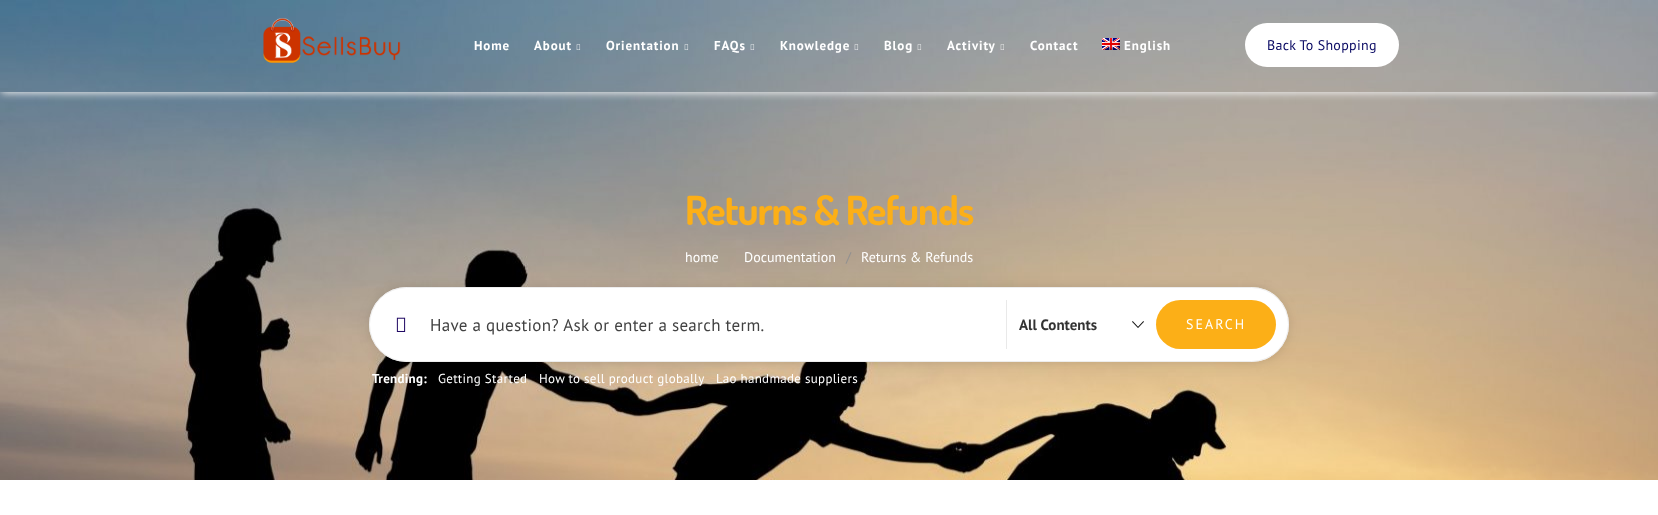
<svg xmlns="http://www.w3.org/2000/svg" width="1658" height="515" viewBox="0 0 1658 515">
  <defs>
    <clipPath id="clip1"><rect x="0" y="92" width="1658" height="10"/></clipPath>
  </defs>
  <rect width="100%" height="100%" fill="rgb(255,255,255)"/>
  <image x="0" y="0" width="1658" height="480" href="pic9.png"/>
  <g clip-path="url(#clip1)">
    <rect x="1" y="3" width="1656" height="90" fill="rgb(242,242,242)" filter="blur(4.5px)"/>
  </g>
  <image x="263" y="18" width="138" height="45" href="pic1.png"/>
  <g font-family="PT Sans" font-size="13" font-weight="bold" letter-spacing="0.9" fill="rgb(255,255,255)">
    <text x="474" y="50">Home</text>
    <text x="534" y="50">About</text>
  </g>
  <image x="576" y="44" width="5" height="6" href="pic2.png"/>
  <text x="606" y="50" font-family="PT Sans" font-size="13" font-weight="bold" letter-spacing="0.9" fill="rgb(255,255,255)">Orientation</text>
  <image x="684" y="44" width="5" height="6" href="pic3.png"/>
  <text x="714" y="50" font-family="PT Sans" font-size="13" font-weight="bold" letter-spacing="0.9" fill="rgb(255,255,255)">FAQs</text>
  <image x="750" y="44" width="5" height="6" href="pic4.png"/>
  <text x="780" y="50" font-family="PT Sans" font-size="13" font-weight="bold" letter-spacing="0.9" fill="rgb(255,255,255)">Knowledge</text>
  <image x="854" y="44" width="5" height="6" href="pic5.png"/>
  <text x="884" y="50" font-family="PT Sans" font-size="13" font-weight="bold" letter-spacing="0.9" fill="rgb(255,255,255)">Blog</text>
  <image x="917" y="44" width="5" height="6" href="pic6.png"/>
  <text x="947" y="50" font-family="PT Sans" font-size="13" font-weight="bold" letter-spacing="0.9" fill="rgb(255,255,255)">Activity</text>
  <image x="1000" y="44" width="4" height="6" href="pic7.png"/>
  <text x="1030" y="50" font-family="PT Sans" font-size="13" font-weight="bold" letter-spacing="0.9" fill="rgb(255,255,255)">Contact</text>
  <image x="1102" y="38" width="18" height="12" href="pic8.png"/>
  <text x="1124" y="50" font-family="PT Sans" font-size="13" font-weight="bold" letter-spacing="0.9" fill="rgb(255,255,255)">English</text>
  <rect x="1245" y="23" width="154" height="44" rx="22" fill="rgb(255,255,255)"/>
  <text x="1267" y="50" font-family="PT Sans" font-size="14" letter-spacing="0.3" fill="rgb(10,10,100)">Back To Shopping</text>
  <text x="685" y="225" font-family="Dosis" font-size="40" font-weight="bold" letter-spacing="-1" fill="rgb(252,175,23)">Returns &amp; Refunds</text>
  <g font-family="PT Sans" font-size="14" fill="rgb(255,255,255)">
    <text x="685" y="262">home</text>
    <text x="744" y="262">Documentation</text>
  </g>
  <text x="846" y="262" font-family="PT Sans" font-size="14" fill="rgb(145,145,145)">/</text>
  <text x="861" y="262" font-family="PT Sans" font-size="14" fill="rgb(255,255,255)">Returns &amp; Refunds</text>
  <rect x="369" y="289" width="920" height="75" rx="37.5" fill="rgba(0,0,0,0.05)" filter="blur(7.5px)"/>
  <rect x="369" y="288" width="920" height="75" rx="37.5" fill="rgba(0,0,0,0.06)" filter="blur(3px)"/>
  <rect x="369" y="287" width="920" height="75" rx="37.5" fill="rgb(255,255,255)"/>
  <rect x="369.5" y="287.5" width="919" height="74" rx="37" fill="none" stroke="rgba(233,233,233,0.84)"/>
  <image x="396" y="317" width="10" height="15" href="pic10.png"/>
  <text x="430" y="331" font-family="PT Sans" font-size="17" letter-spacing="0.3" fill="rgb(66,66,66)">Have a question? Ask or enter a search term.</text>
  <image x="1132" y="321" width="12" height="7" href="pic11.png"/>
  <rect x="1006" y="300" width="1" height="49" fill="rgb(233,233,233)"/>
  <text x="1019" y="330" font-family="PT Sans" font-size="15" font-weight="bold" fill="rgb(51,51,51)">All Contents</text>
  <rect x="1156" y="300" width="120" height="49" rx="24.5" fill="rgb(252,175,23)"/>
  <text x="1186" y="329" font-family="PT Sans" font-size="14" letter-spacing="2" fill="rgb(255,255,255)">SEARCH</text>
  <text x="372" y="383" font-family="PT Sans" font-size="13" font-weight="bold" letter-spacing="0.3" fill="rgb(255,255,255)">Trending:</text>
  <g font-family="PT Sans" font-size="13" letter-spacing="0.3" fill="rgb(255,255,255)">
    <text x="438" y="383">Getting Started</text>
    <text x="539" y="383">How to sell product globally</text>
    <text x="716" y="383">Lao handmade suppliers</text>
  </g>
</svg>
